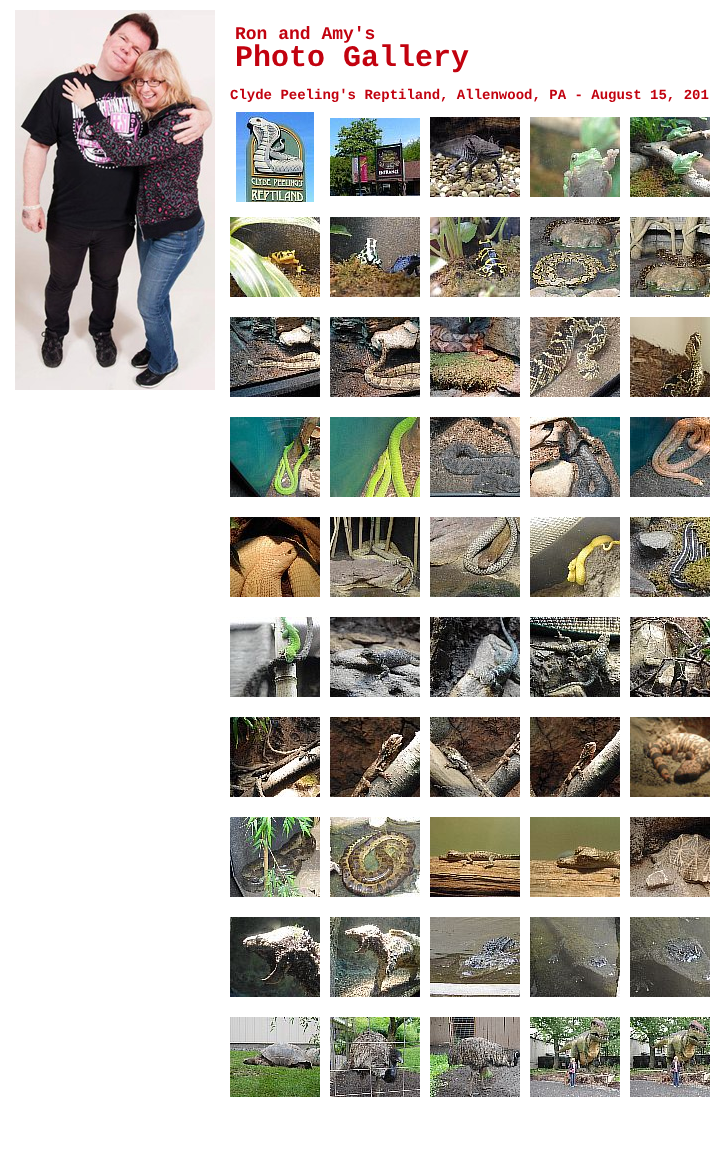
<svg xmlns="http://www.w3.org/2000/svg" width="710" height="1159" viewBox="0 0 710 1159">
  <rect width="100%" height="100%" fill="rgb(255,255,255)"/>
  <image x="15" y="10" width="200" height="380" href="pic1.png"/>
  <text x="235" y="39" font-family="Liberation Mono" font-size="18" font-weight="bold" fill="rgb(194,2,15)">Ron and Amy's</text>
  <text x="235" y="66" font-family="Liberation Mono" font-size="30" font-weight="bold" fill="rgb(194,2,15)">Photo Gallery</text>
  <text x="230" y="99" font-family="Liberation Mono" font-size="14" font-weight="bold" fill="rgb(194,2,15)">Clyde Peeling's Reptiland, Allenwood, PA - August 15, 201</text>
  <image x="236" y="112" width="78" height="90" href="pic2.png"/>
  <image x="330" y="118" width="90" height="78" href="pic3.png"/>
  <image x="430" y="117" width="90" height="80" href="pic4.png"/>
  <image x="530" y="117" width="90" height="80" href="pic5.png"/>
  <image x="630" y="117" width="80" height="80" href="pic6.png"/>
  <image x="230" y="217" width="90" height="80" href="pic7.png"/>
  <image x="330" y="217" width="90" height="80" href="pic8.png"/>
  <image x="430" y="217" width="90" height="80" href="pic9.png"/>
  <image x="530" y="217" width="90" height="80" href="pic10.png"/>
  <image x="630" y="217" width="80" height="80" href="pic11.png"/>
  <image x="230" y="317" width="90" height="80" href="pic12.png"/>
  <image x="330" y="317" width="90" height="80" href="pic13.png"/>
  <image x="430" y="317" width="90" height="80" href="pic14.png"/>
  <image x="530" y="317" width="90" height="80" href="pic15.png"/>
  <image x="630" y="317" width="80" height="80" href="pic16.png"/>
  <image x="230" y="417" width="90" height="80" href="pic17.png"/>
  <image x="330" y="417" width="90" height="80" href="pic18.png"/>
  <image x="430" y="417" width="90" height="80" href="pic19.png"/>
  <image x="530" y="417" width="90" height="80" href="pic20.png"/>
  <image x="630" y="417" width="80" height="80" href="pic21.png"/>
  <image x="230" y="517" width="90" height="80" href="pic22.png"/>
  <image x="330" y="517" width="90" height="80" href="pic23.png"/>
  <image x="430" y="517" width="90" height="80" href="pic24.png"/>
  <image x="530" y="517" width="90" height="80" href="pic25.png"/>
  <image x="630" y="517" width="80" height="80" href="pic26.png"/>
  <image x="230" y="617" width="90" height="80" href="pic27.png"/>
  <image x="330" y="617" width="90" height="80" href="pic28.png"/>
  <image x="430" y="617" width="90" height="80" href="pic29.png"/>
  <image x="530" y="617" width="90" height="80" href="pic30.png"/>
  <image x="630" y="617" width="80" height="80" href="pic31.png"/>
  <image x="230" y="717" width="90" height="80" href="pic32.png"/>
  <image x="330" y="717" width="90" height="80" href="pic33.png"/>
  <image x="430" y="717" width="90" height="80" href="pic34.png"/>
  <image x="530" y="717" width="90" height="80" href="pic35.png"/>
  <image x="630" y="717" width="80" height="80" href="pic36.png"/>
  <image x="230" y="817" width="90" height="80" href="pic37.png"/>
  <image x="330" y="817" width="90" height="80" href="pic38.png"/>
  <image x="430" y="817" width="90" height="80" href="pic39.png"/>
  <image x="530" y="817" width="90" height="80" href="pic40.png"/>
  <image x="630" y="817" width="80" height="80" href="pic41.png"/>
  <image x="230" y="917" width="90" height="80" href="pic42.png"/>
  <image x="330" y="917" width="90" height="80" href="pic43.png"/>
  <image x="430" y="917" width="90" height="80" href="pic44.png"/>
  <image x="530" y="917" width="90" height="80" href="pic45.png"/>
  <image x="630" y="917" width="80" height="80" href="pic46.png"/>
  <image x="230" y="1017" width="90" height="80" href="pic47.png"/>
  <image x="330" y="1017" width="90" height="80" href="pic48.png"/>
  <image x="430" y="1017" width="90" height="80" href="pic49.png"/>
  <image x="530" y="1017" width="90" height="80" href="pic50.png"/>
  <image x="630" y="1017" width="80" height="80" href="pic51.png"/>
</svg>
